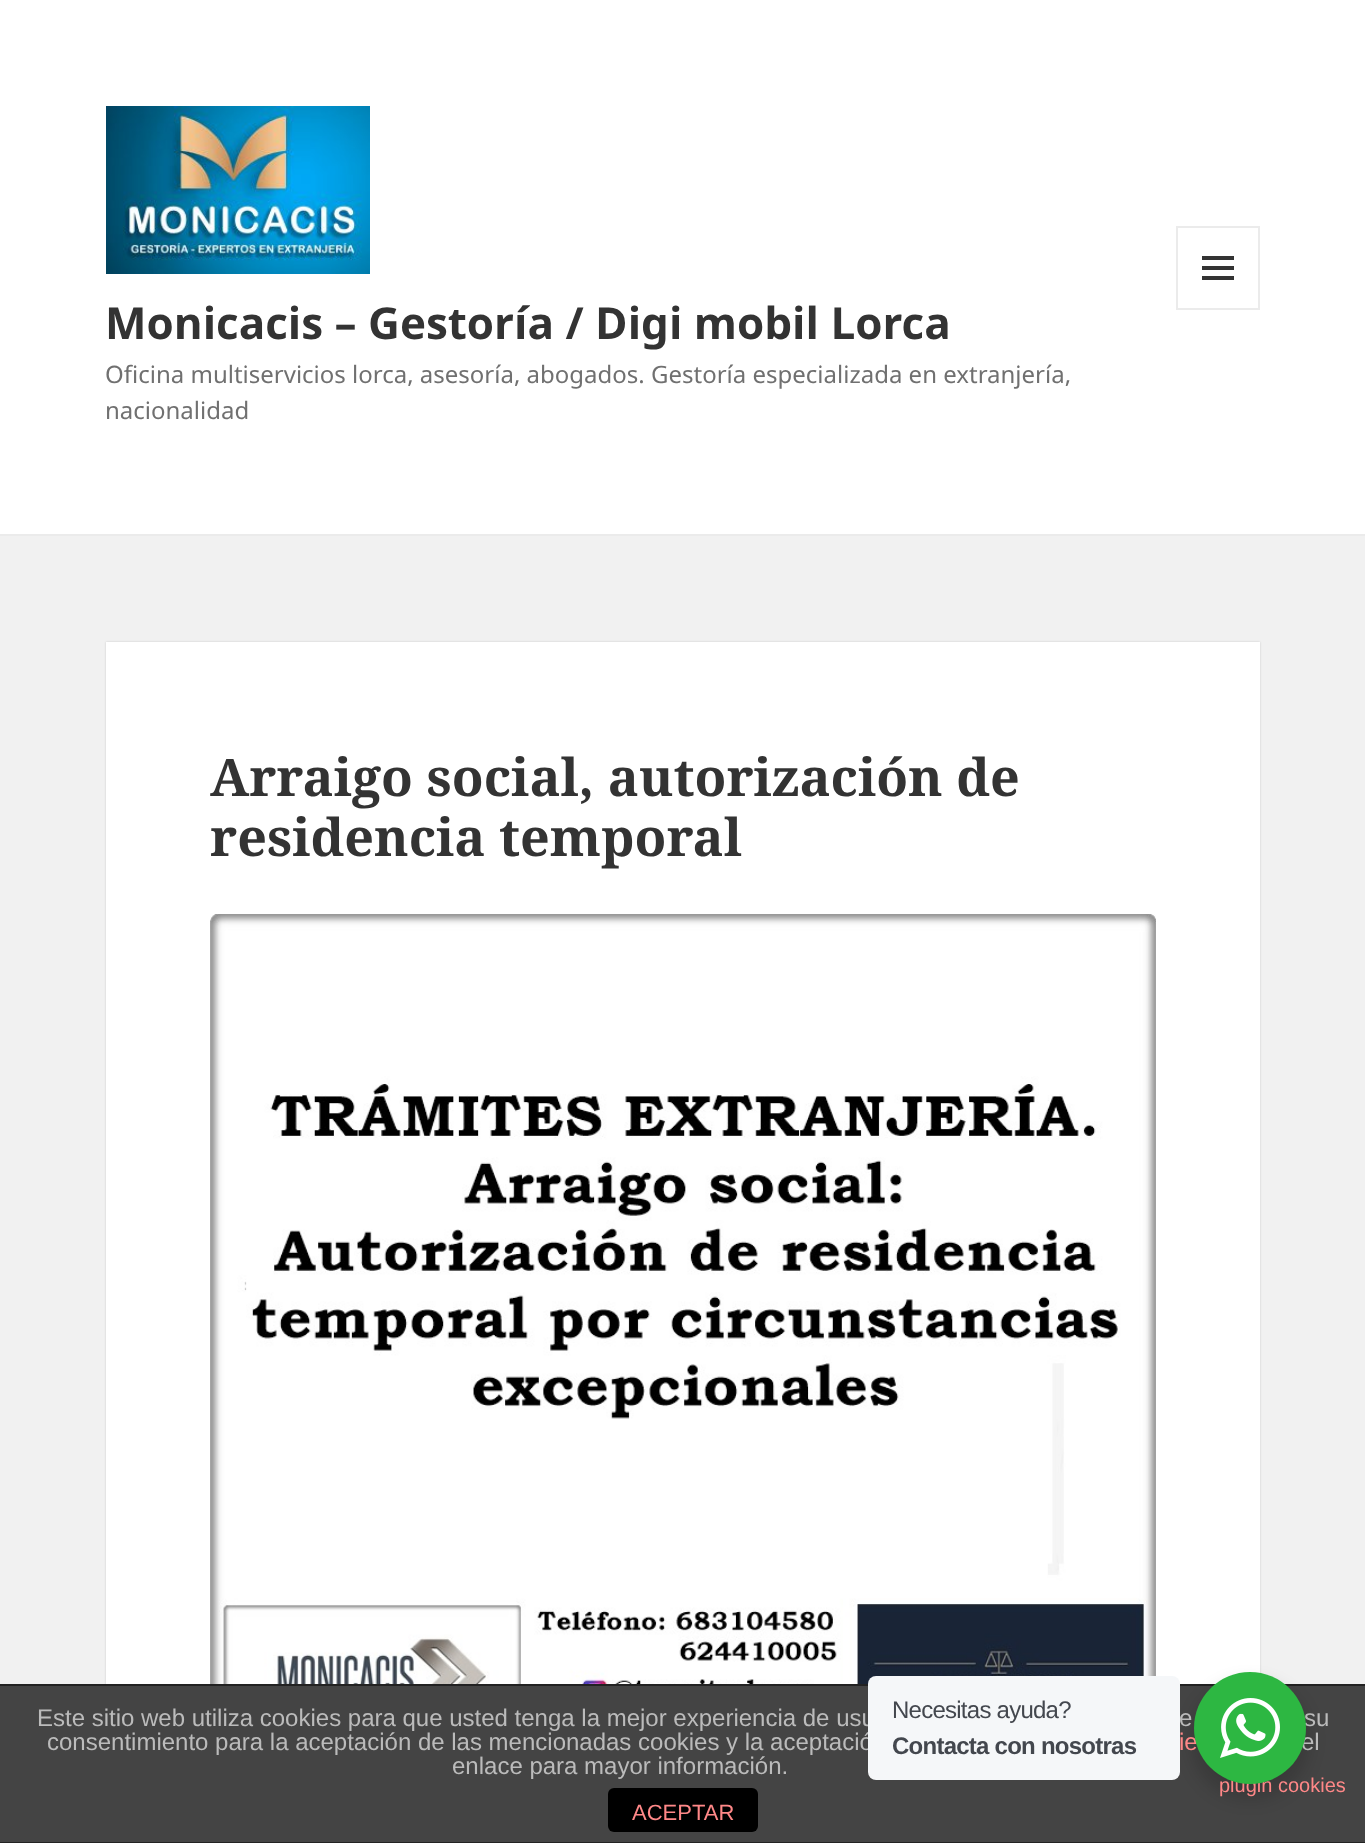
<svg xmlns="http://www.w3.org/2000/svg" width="1365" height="1843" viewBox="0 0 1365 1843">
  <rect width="100%" height="100%" fill="rgb(241,241,241)"/>
  <rect x="0" y="0" width="1365" height="534" fill="rgb(255,255,255)"/>
  <rect x="0" y="534" width="1365" height="2" fill="rgb(235,235,235)"/>
  <image x="106" y="106" width="264" height="168" href="pic1.png"/>
  <rect x="1177" y="227" width="82" height="82" fill="none" stroke="rgb(235,235,235)" stroke-width="2"/>
  <image x="1202" y="256" width="32" height="24" href="pic2.png"/>
  <text x="105" y="339" font-family="Noto Sans" font-size="44" font-weight="bold" fill="rgb(51,51,51)">Monicacis – Gestoría / Digi mobil Lorca</text>
  <g font-family="Noto Sans" font-size="24" fill="rgb(112,112,112)">
    <text>
      <tspan x="105" y="383">Oficina multiservicios lorca, asesoría, abogados. Gestoría especializada en extranjería,</tspan>
      <tspan x="105" y="419">nacionalidad</tspan>
    </text>
  </g>
  <rect x="106" y="642" width="1154" height="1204" fill="rgba(0,0,0,0.15)" filter="blur(1px)"/>
  <rect x="106" y="642" width="1154" height="1042" fill="rgb(255,255,255)"/>
  <g font-family="Noto Serif" font-size="52" font-weight="bold" fill="rgb(51,51,51)">
    <text>
      <tspan x="210" y="796">Arraigo social, autorización de</tspan>
      <tspan x="210" y="856">residencia temporal</tspan>
    </text>
  </g>
  <image x="210" y="914" width="946" height="770" href="pic3.png"/>
  <rect x="0" y="1686" width="1365" height="156" fill="rgb(68,68,68)"/>
  <rect x="0" y="1684" width="1365" height="2" fill="rgb(34,34,34)"/>
  <rect x="1190" y="1680" width="120" height="120" rx="60" fill="rgba(0,0,0,0.14)" filter="blur(8px)"/>
  <g font-family="Liberation Sans" font-size="24" fill="rgb(187,187,187)">
    <text x="37" y="1726">Este sitio web utiliza cookies para que usted tenga la mejor experiencia de usu</text>
    <text x="1179" y="1726">e</text>
    <text x="47" y="1750">consentimiento para la aceptación de las mencionadas cookies y la aceptació</text>
  </g>
  <rect x="868" y="1676" width="312" height="104" rx="8" fill="rgb(245,247,249)"/>
  <text x="892" y="1718" font-family="Liberation Sans" font-size="24" letter-spacing="-0.75" fill="rgb(67,71,78)">Necesitas ayuda?</text>
  <text x="892" y="1754" font-family="Liberation Sans" font-size="24" font-weight="bold" letter-spacing="-0.75" fill="rgb(67,71,78)">Contacta con nosotras</text>
  <text x="1304" y="1726" font-family="Liberation Sans" font-size="24" fill="rgb(187,187,187)">su</text>
  <text x="1179" y="1750" font-family="Liberation Sans" font-size="24" fill="rgb(255,136,136)">ie</text>
  <text x="1301" y="1750" font-family="Liberation Sans" font-size="24" fill="rgb(187,187,187)">el</text>
  <text x="1219" y="1792" font-family="Liberation Sans" font-size="20" fill="rgb(255,136,136)">plugin cookies</text>
  <circle cx="1250" cy="1728" r="56" fill="rgb(45,183,66)"/>
  <image x="1220" y="1698" width="60" height="60" href="pic4.png"/>
  <rect x="0" y="1842" width="1365" height="1" fill="rgb(34,34,34)"/>
  <text x="452" y="1774" font-family="Liberation Sans" font-size="24" fill="rgb(187,187,187)">enlace para mayor información.</text>
  <rect x="608" y="1788" width="150" height="44" rx="6" fill="rgb(0,0,0)"/>
  <text x="632" y="1820" font-family="Liberation Sans" font-size="22" fill="rgb(255,136,136)">ACEPTAR</text>
</svg>
